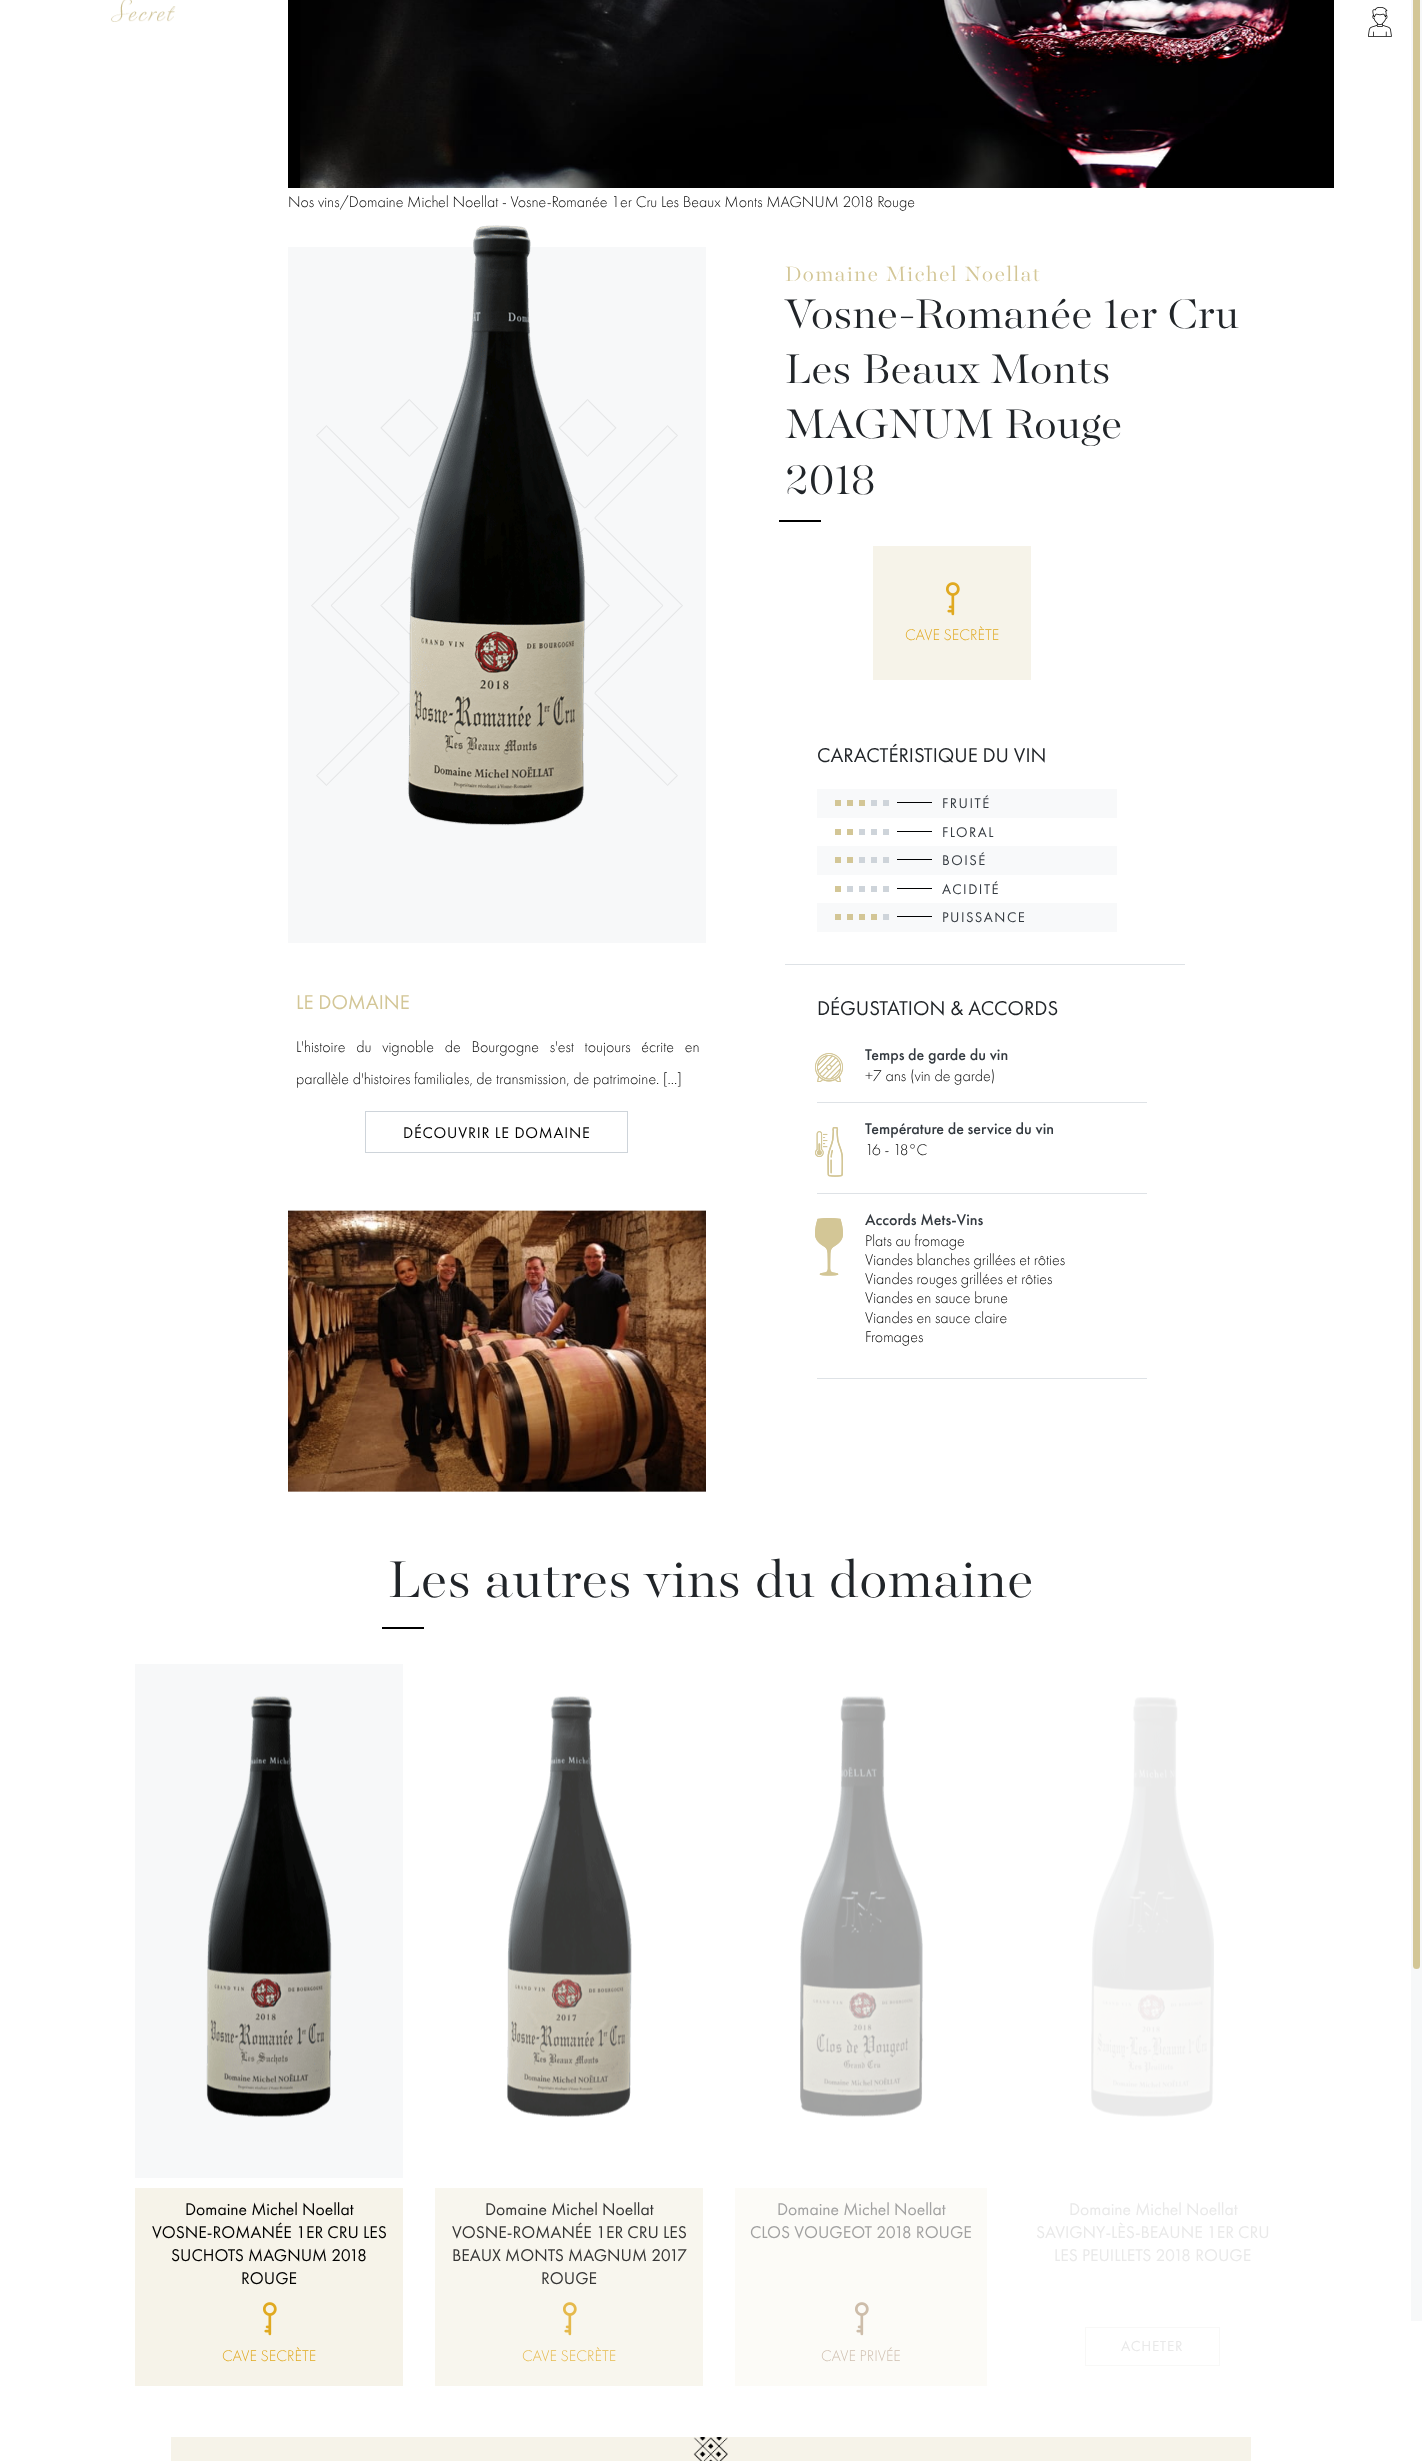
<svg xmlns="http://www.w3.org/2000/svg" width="1422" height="2461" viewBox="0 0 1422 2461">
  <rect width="100%" height="100%" fill="rgb(255,255,255)"/>
  <image x="111" y="0" width="65" height="22" href="pic1.png"/>
  <image x="1368" y="7" width="24" height="30" href="pic2.png"/>
  <rect x="1411" y="0" width="11" height="2321" fill="rgb(247,248,249)"/>
  <rect x="1413" y="-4" width="7" height="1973" rx="3.5" fill="rgb(211,198,150)"/>
  <rect x="288" y="0" width="1046" height="188" fill="rgb(0,0,0)"/>
  <image x="300" y="0" width="990" height="188" href="pic3.png"/>
  <text x="288" y="207" font-family="Futura PT" font-size="16" font-weight="300" fill="rgb(0,0,0)">Nos vins/Domaine Michel Noellat - Vosne-Romanée 1er Cru Les Beaux Monts MAGNUM 2018 Rouge</text>
  <rect x="288" y="247" width="418" height="696" fill="rgb(247,248,249)"/>
  <image x="311" y="399" width="372" height="387" href="pic5.png"/>
  <image x="407" y="225" width="178" height="601" href="pic4.png"/>
  <text x="296" y="1009" font-family="Futura PT" font-size="20.75" fill="rgb(211,198,150)">LE DOMAINE</text>
  <g font-family="Futura PT" font-size="16" font-weight="300" fill="rgb(0,0,0)">
    <text x="296" y="1052" word-spacing="7">L'histoire du vignoble de Bourgogne s'est toujours écrite en</text>
    <text x="296" y="1084">parallèle d'histoires familiales, de transmission, de patrimoine. [...]</text>
  </g>
  <rect x="365.5" y="1111.5" width="262" height="41" fill="none" stroke="rgb(206,212,218)"/>
  <text x="403" y="1138" font-family="Futura PT" font-size="16" letter-spacing="0.8" fill="rgb(0,0,0)">DÉCOUVRIR LE DOMAINE</text>
  <image x="288" y="1210" width="418" height="282" href="pic6.png"/>
  <text x="785" y="281" font-family="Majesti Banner" font-size="23" font-weight="300" letter-spacing="1.15" fill="rgb(211,198,150)">Domaine Michel Noellat</text>
  <g font-family="Majesti Banner" font-size="46" font-weight="300" fill="rgb(33,37,41)">
    <text>
      <tspan x="785" y="328">Vosne-Romanée 1er Cru</tspan>
      <tspan x="785" y="383">Les Beaux Monts</tspan>
      <tspan x="785" y="438">MAGNUM Rouge</tspan>
      <tspan x="785" y="494">2018</tspan>
    </text>
  </g>
  <rect x="779" y="520" width="42" height="2" fill="rgb(0,0,0)"/>
  <rect x="873" y="546" width="158" height="134" fill="rgb(246,243,233)"/>
  <image x="946" y="582" width="14" height="34" href="pic7.png"/>
  <text x="905" y="640" font-family="Futura PT" font-size="16" font-weight="300" fill="rgb(224,169,32)">CAVE SECRÈTE</text>
  <text x="817" y="762" font-family="Futura PT" font-size="20.75" fill="rgb(33,37,41)">CARACTÉRISTIQUE DU VIN</text>
  <rect x="817" y="789" width="300" height="29" fill="rgb(248,249,250)"/>
  <rect x="835" y="800" width="6" height="6" fill="rgb(211,198,150)"/>
  <rect x="847" y="800" width="6" height="6" fill="rgb(211,198,150)"/>
  <rect x="859" y="800" width="6" height="6" fill="rgb(211,198,150)"/>
  <rect x="871" y="800" width="6" height="6" fill="rgb(206,212,218)"/>
  <rect x="883" y="800" width="6" height="6" fill="rgb(206,212,218)"/>
  <rect x="897" y="802" width="35" height="1" fill="rgb(1,2,3)"/>
  <text x="942" y="808" font-family="Futura PT" font-size="14.5" letter-spacing="1.5" fill="rgb(52,58,64)">FRUITÉ</text>
  <rect x="835" y="829" width="6" height="6" fill="rgb(211,198,150)"/>
  <rect x="847" y="829" width="6" height="6" fill="rgb(211,198,150)"/>
  <rect x="859" y="829" width="6" height="6" fill="rgb(206,212,218)"/>
  <rect x="871" y="829" width="6" height="6" fill="rgb(206,212,218)"/>
  <rect x="883" y="829" width="6" height="6" fill="rgb(206,212,218)"/>
  <rect x="897" y="831" width="35" height="1" fill="rgb(1,2,3)"/>
  <text x="942" y="837" font-family="Futura PT" font-size="14.5" letter-spacing="1.5" fill="rgb(52,58,64)">FLORAL</text>
  <rect x="817" y="846" width="300" height="29" fill="rgb(248,249,250)"/>
  <rect x="835" y="857" width="6" height="6" fill="rgb(211,198,150)"/>
  <rect x="847" y="857" width="6" height="6" fill="rgb(211,198,150)"/>
  <rect x="859" y="857" width="6" height="6" fill="rgb(206,212,218)"/>
  <rect x="871" y="857" width="6" height="6" fill="rgb(206,212,218)"/>
  <rect x="883" y="857" width="6" height="6" fill="rgb(206,212,218)"/>
  <rect x="897" y="859" width="35" height="1" fill="rgb(1,2,3)"/>
  <text x="942" y="865" font-family="Futura PT" font-size="14.5" letter-spacing="1.5" fill="rgb(52,58,64)">BOISÉ</text>
  <rect x="835" y="886" width="6" height="6" fill="rgb(211,198,150)"/>
  <rect x="847" y="886" width="6" height="6" fill="rgb(206,212,218)"/>
  <rect x="859" y="886" width="6" height="6" fill="rgb(206,212,218)"/>
  <rect x="871" y="886" width="6" height="6" fill="rgb(206,212,218)"/>
  <rect x="883" y="886" width="6" height="6" fill="rgb(206,212,218)"/>
  <rect x="897" y="888" width="35" height="1" fill="rgb(1,2,3)"/>
  <text x="942" y="894" font-family="Futura PT" font-size="14.5" letter-spacing="1.5" fill="rgb(52,58,64)">ACIDITÉ</text>
  <rect x="817" y="903" width="300" height="29" fill="rgb(248,249,250)"/>
  <rect x="835" y="914" width="6" height="6" fill="rgb(211,198,150)"/>
  <rect x="847" y="914" width="6" height="6" fill="rgb(211,198,150)"/>
  <rect x="859" y="914" width="6" height="6" fill="rgb(211,198,150)"/>
  <rect x="871" y="914" width="6" height="6" fill="rgb(211,198,150)"/>
  <rect x="883" y="914" width="6" height="6" fill="rgb(206,212,218)"/>
  <rect x="897" y="916" width="35" height="1" fill="rgb(1,2,3)"/>
  <text x="942" y="922" font-family="Futura PT" font-size="14.5" letter-spacing="1.5" fill="rgb(52,58,64)">PUISSANCE</text>
  <rect x="785" y="964" width="400" height="1" fill="rgb(222,226,230)"/>
  <text x="817" y="1015" font-family="Futura PT" font-size="20.75" fill="rgb(33,37,41)">DÉGUSTATION &amp; ACCORDS</text>
  <rect x="817" y="1102" width="330" height="1" fill="rgb(222,226,230)"/>
  <image x="815" y="1053" width="28" height="29" href="pic8.png"/>
  <text x="865" y="1060" font-family="Futura PT" font-size="16" font-weight="500" fill="rgb(52,58,64)">Temps de garde du vin</text>
  <text x="865" y="1081" font-family="Futura PT" font-size="16" font-weight="300" fill="rgb(0,0,0)">+7 ans (vin de garde)</text>
  <rect x="817" y="1193" width="330" height="1" fill="rgb(222,226,230)"/>
  <image x="815" y="1127" width="28" height="50" href="pic9.png"/>
  <text x="865" y="1134" font-family="Futura PT" font-size="16" font-weight="500" fill="rgb(52,58,64)">Température de service du vin</text>
  <text x="865" y="1155" font-family="Futura PT" font-size="16" font-weight="300" fill="rgb(0,0,0)">16 - 18°C</text>
  <rect x="817" y="1378" width="330" height="1" fill="rgb(222,226,230)"/>
  <image x="815" y="1218" width="28" height="58" href="pic10.png"/>
  <text x="865" y="1225" font-family="Futura PT" font-size="16" font-weight="500" fill="rgb(52,58,64)">Accords Mets-Vins</text>
  <g font-family="Futura PT" font-size="16" font-weight="300" fill="rgb(0,0,0)">
    <text>
      <tspan x="865" y="1246">Plats au fromage</tspan>
      <tspan x="865" y="1265">Viandes blanches grillées et rôties</tspan>
      <tspan x="865" y="1284">Viandes rouges grillées et rôties</tspan>
      <tspan x="865" y="1303">Viandes en sauce brune</tspan>
      <tspan x="865" y="1323">Viandes en sauce claire</tspan>
      <tspan x="865" y="1342">Fromages</tspan>
    </text>
  </g>
  <text x="388" y="1597" font-family="Majesti Banner" font-size="57.6" font-weight="300" fill="rgb(33,37,41)">Les autres vins du domaine</text>
  <rect x="382" y="1627" width="42" height="2" fill="rgb(0,0,0)"/>
  <rect x="135" y="1664" width="268" height="514" fill="rgb(247,248,249)"/>
  <image x="206" y="1696" width="126" height="421" href="pic11.png"/>
  <rect x="135" y="2188" width="268" height="198" fill="rgb(246,243,233)"/>
  <g font-family="Futura PT" font-size="17.6" fill="rgb(0,0,0)">
    <text x="185" y="2215">Domaine Michel Noellat</text>
    <text x="152" y="2238">VOSNE-ROMANÉE 1ER CRU LES</text>
    <text x="171" y="2261">SUCHOTS MAGNUM 2018</text>
    <text x="241" y="2284">ROUGE</text>
  </g>
  <image x="263" y="2302" width="14" height="34" href="pic7.png"/>
  <text x="222" y="2361" font-family="Futura PT" font-size="16" font-weight="300" fill="rgb(224,169,32)">CAVE SECRÈTE</text>
  <image x="506" y="1696" width="126" height="421" href="pic12.png"/>
  <rect x="435" y="2188" width="268" height="198" fill="rgb(248,246,238)"/>
  <g font-family="Futura PT" font-size="17.6" fill="rgb(53,53,53)">
    <text x="485" y="2215">Domaine Michel Noellat</text>
    <text>
      <tspan x="452" y="2238">VOSNE-ROMANÉE 1ER CRU LES</tspan>
      <tspan x="452" y="2261">BEAUX MONTS MAGNUM 2017</tspan>
    </text>
    <text x="541" y="2284">ROUGE</text>
  </g>
  <image x="563" y="2302" width="14" height="34" href="pic13.png"/>
  <text x="522" y="2361" font-family="Futura PT" font-size="16" font-weight="300" fill="rgb(230,187,79)">CAVE SECRÈTE</text>
  <image x="800" y="1696" width="123" height="421" href="pic14.png"/>
  <rect x="735" y="2188" width="252" height="198" fill="rgb(252,251,247)"/>
  <g font-family="Futura PT" font-size="17.6" fill="rgb(161,161,161)">
    <text x="777" y="2215">Domaine Michel Noellat</text>
    <text x="750" y="2238">CLOS VOUGEOT 2018 ROUGE</text>
  </g>
  <image x="855" y="2302" width="14" height="34" href="pic15.png"/>
  <text x="821" y="2361" font-family="Futura PT" font-size="16" font-weight="300" fill="rgb(207,191,175)">CAVE PRIVÉE</text>
  <image x="1091" y="1697" width="123" height="420" href="pic16.png"/>
  <g font-family="Futura PT" font-size="17.6" fill="rgb(233,233,233)">
    <text x="1069" y="2215">Domaine Michel Noellat</text>
    <text x="1036" y="2238">SAVIGNY-LÈS-BEAUNE 1ER CRU</text>
    <text x="1054" y="2261">LES PEUILLETS 2018 ROUGE</text>
  </g>
  <rect x="1085.5" y="2327.5" width="134" height="38" fill="none" stroke="rgb(248,248,247)"/>
  <text x="1121" y="2351" font-family="Futura PT" font-size="15" letter-spacing="0.75" fill="rgb(233,233,233)">ACHETER</text>
  <rect x="171" y="2437" width="1080" height="24" fill="rgb(246,243,233)"/>
  <image x="693" y="2437" width="35" height="24" href="pic17.png"/>
</svg>
